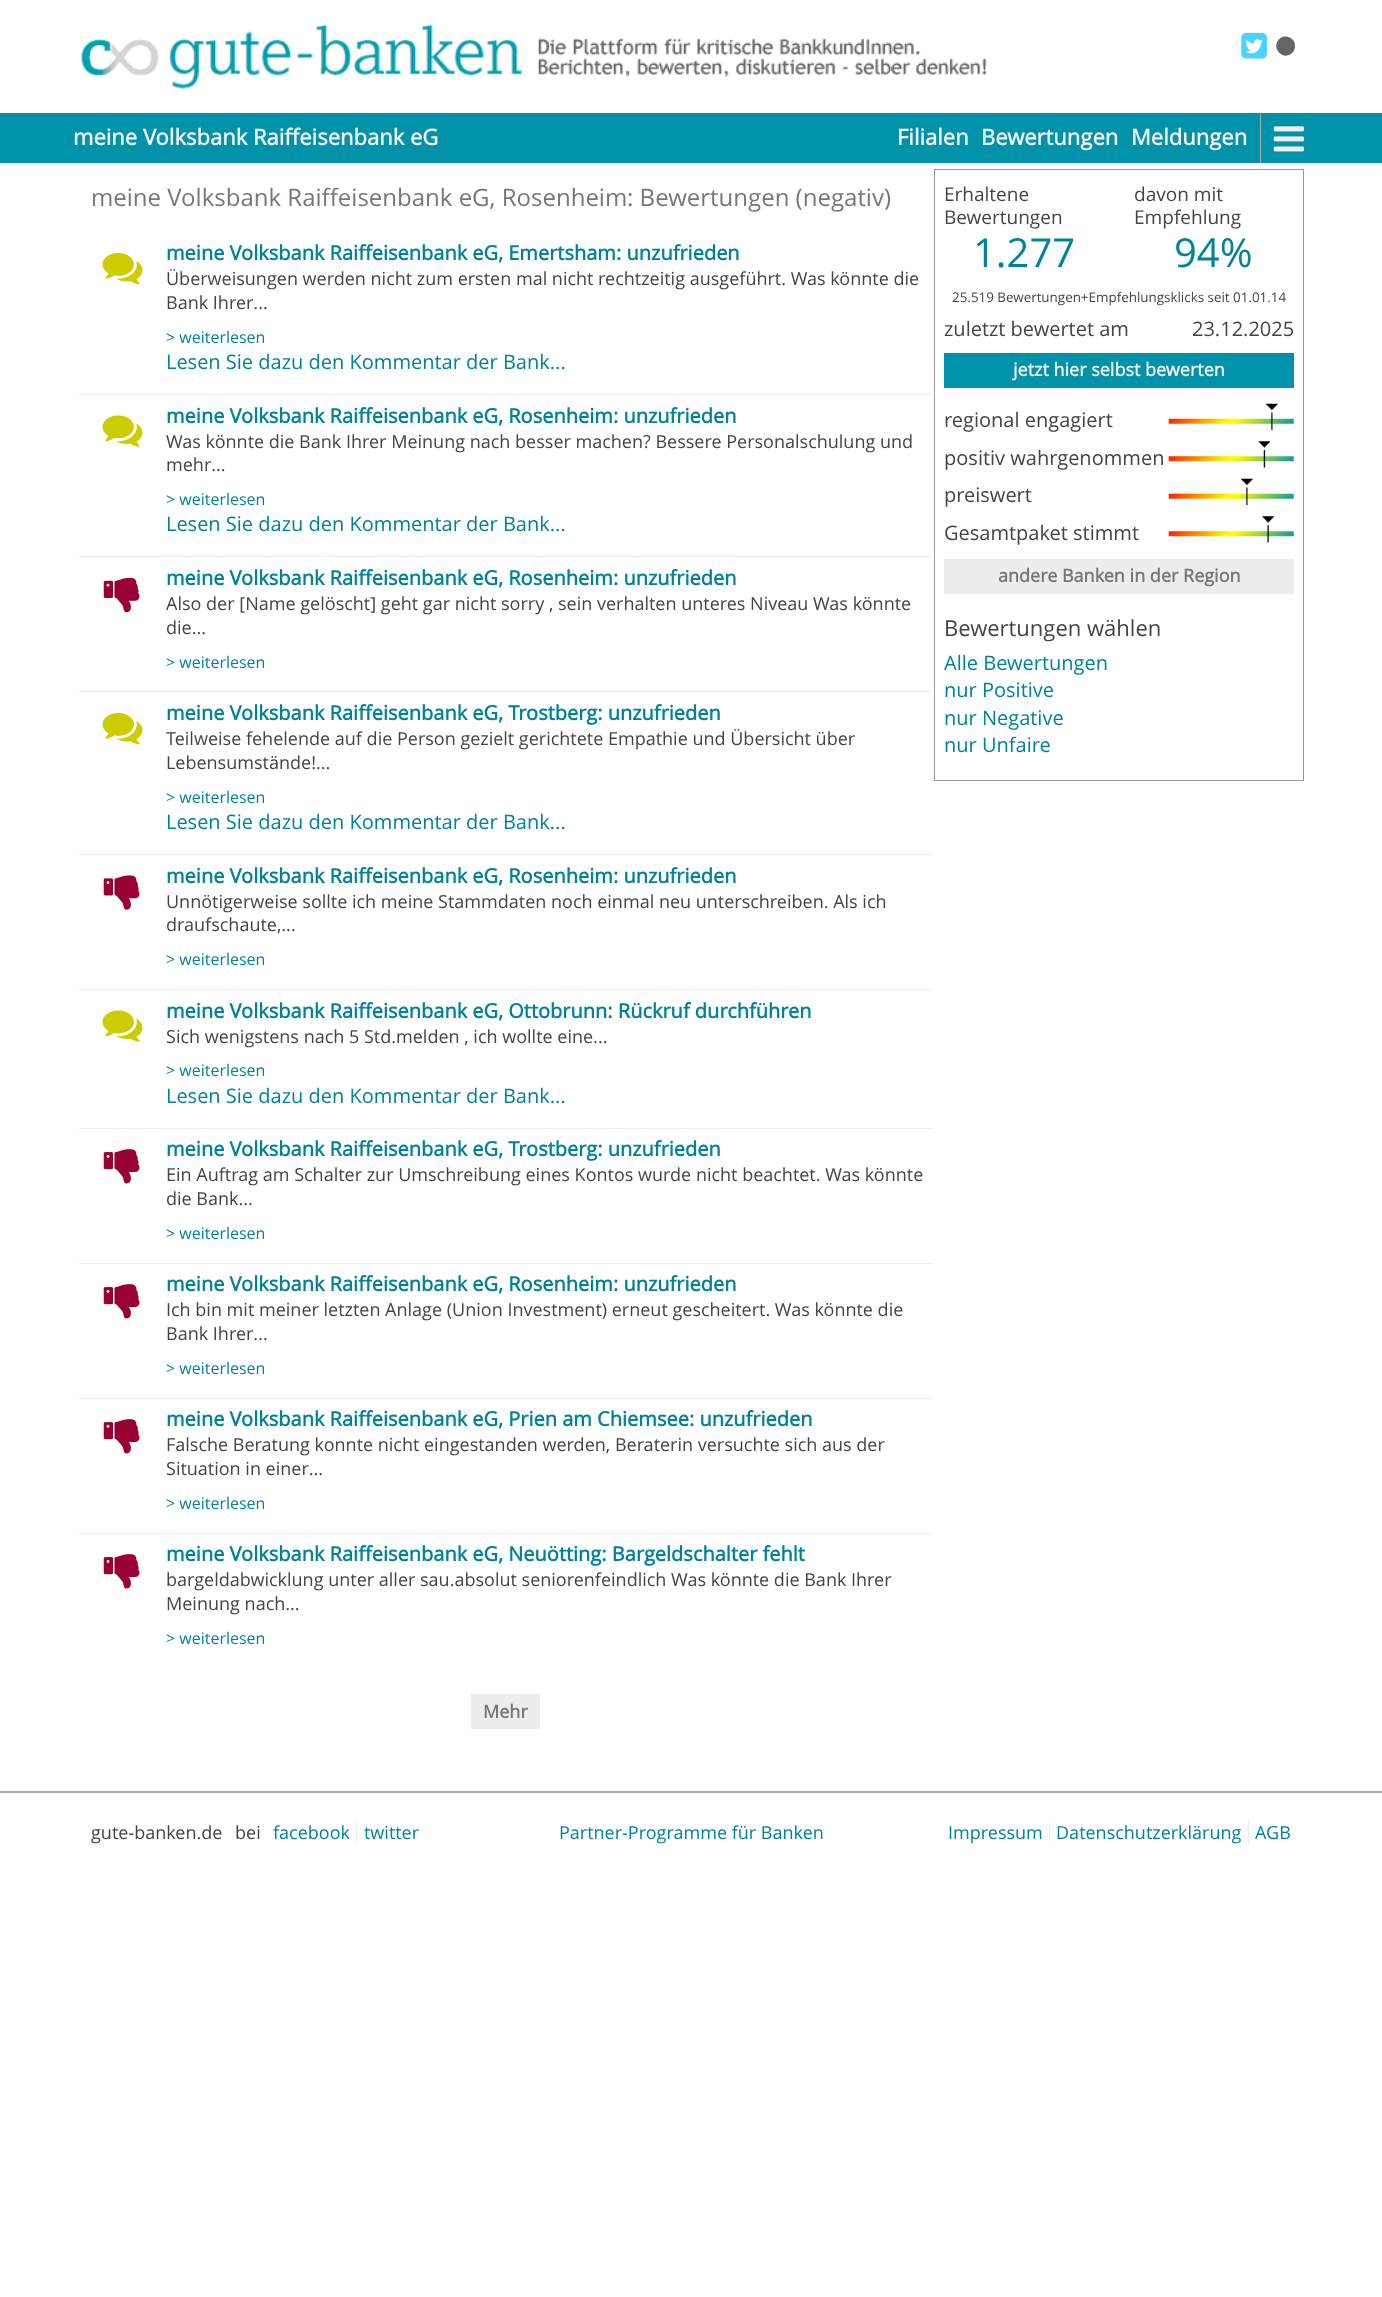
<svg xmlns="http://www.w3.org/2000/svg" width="1382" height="2297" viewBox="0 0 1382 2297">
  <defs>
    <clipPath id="clip1"><rect x="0" y="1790" width="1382" height="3"/></clipPath>
  </defs>
  <rect width="100%" height="100%" fill="rgb(255,255,255)"/>
  <image x="81" y="24" width="442" height="65" href="pic1.png"/>
  <image x="538" y="38" width="449" height="39" href="pic2.png"/>
  <image x="1241" y="32" width="26" height="27" href="pic3.png"/>
  <path d="M1295 46C1295 48.5 1294 51.5 1292 53C1282 62 1269.5 46 1280.5 38C1286.5 34 1295.5 38.5 1295 46Z" fill="rgb(102,102,102)"/>
  <rect x="0" y="113" width="1382" height="50" fill="rgb(0,146,168)"/>
  <g font-family="Open Sans" font-size="22" font-weight="bold" fill="rgb(238,238,238)">
    <text x="73" y="145">meine Volksbank Raiffeisenbank eG</text>
    <text x="897" y="145">Filialen</text>
    <text x="981" y="145">Bewertungen</text>
    <text x="1131" y="145">Meldungen</text>
  </g>
  <rect x="1260" y="113" width="1" height="50" fill="rgb(170,170,170)"/>
  <image x="1273" y="126" width="31" height="26" href="pic4.png"/>
  <rect x="934.5" y="169.5" width="369" height="611" fill="none" stroke="rgb(153,153,153)"/>
  <g font-family="Open Sans" font-size="19" fill="rgb(68,68,68)">
    <text>
      <tspan x="944" y="201">Erhaltene</tspan>
      <tspan x="944" y="224">Bewertungen</tspan>
    </text>
  </g>
  <text x="973" y="267" font-family="Open Sans" font-size="40" fill="rgb(0,130,152)">1.277</text>
  <g font-family="Open Sans" font-size="19" fill="rgb(68,68,68)">
    <text>
      <tspan x="1134" y="201">davon mit</tspan>
      <tspan x="1134" y="224">Empfehlung</tspan>
    </text>
  </g>
  <text x="1174" y="267" font-family="Open Sans" font-size="40" fill="rgb(0,130,152)">94%</text>
  <text x="952" y="302" font-family="Open Sans" font-size="13.4" fill="rgb(68,68,68)">25.519 Bewertungen+Empfehlungsklicks seit 01.01.14</text>
  <g font-family="Open Sans" font-size="20" fill="rgb(68,68,68)">
    <text x="944" y="336">zuletzt bewertet am</text>
    <text x="1192" y="336">23.12.2025</text>
  </g>
  <rect x="944" y="353" width="350" height="35" fill="rgb(0,146,168)"/>
  <text x="1013" y="376" font-family="Open Sans" font-size="18" font-weight="bold" fill="rgb(238,238,238)">jetzt hier selbst bewerten</text>
  <text x="944" y="427" font-family="Open Sans" font-size="20" fill="rgb(68,68,68)">regional engagiert</text>
  <image x="1168" y="418" width="126" height="6" href="pic5.png"/>
  <image x="1266" y="403" width="12" height="27" href="pic6.png"/>
  <text x="944" y="465" font-family="Open Sans" font-size="20" fill="rgb(68,68,68)">positiv wahrgenommen</text>
  <image x="1168" y="456" width="126" height="6" href="pic7.png"/>
  <image x="1258" y="441" width="12" height="27" href="pic8.png"/>
  <text x="944" y="502" font-family="Open Sans" font-size="20" fill="rgb(68,68,68)">preiswert</text>
  <image x="1168" y="493" width="126" height="6" href="pic5.png"/>
  <image x="1241" y="478" width="12" height="27" href="pic9.png"/>
  <text x="944" y="540" font-family="Open Sans" font-size="20" fill="rgb(68,68,68)">Gesamtpaket stimmt</text>
  <image x="1168" y="531" width="126" height="6" href="pic7.png"/>
  <image x="1262" y="516" width="12" height="27" href="pic10.png"/>
  <rect x="944" y="559" width="350" height="35" fill="rgb(237,237,237)"/>
  <text x="998" y="582" font-family="Open Sans" font-size="18" font-weight="bold" fill="rgb(119,119,119)">andere Banken in der Region</text>
  <text x="944" y="636" font-family="Open Sans" font-size="22" fill="rgb(68,68,68)">Bewertungen wählen</text>
  <g font-family="Open Sans" font-size="20" fill="rgb(0,130,152)">
    <text>
      <tspan x="944" y="670">Alle Bewertungen</tspan>
      <tspan x="944" y="697">nur Positive</tspan>
      <tspan x="944" y="725">nur Negative</tspan>
      <tspan x="944" y="752">nur Unfaire</tspan>
    </text>
  </g>
  <g font-family="Open Sans" font-size="24" fill="rgb(119,119,119)">
    <text x="91" y="206">meine Volksbank Raiffeisenbank eG, Rosenheim</text>
    <text x="627" y="206">: Bewertungen (negativ)</text>
  </g>
  <image x="102" y="253" width="41" height="32" href="pic11.png"/>
  <text x="166" y="260" font-family="Open Sans" font-size="20" font-weight="bold" fill="rgb(0,130,152)">meine Volksbank Raiffeisenbank eG, Emertsham: unzufrieden</text>
  <g font-family="Open Sans" font-size="18" fill="rgb(68,68,68)">
    <text>
      <tspan x="166" y="285">Überweisungen werden nicht zum ersten mal nicht rechtzeitig ausgeführt. Was könnte die</tspan>
      <tspan x="166" y="309">Bank Ihrer...</tspan>
    </text>
  </g>
  <text x="166" y="343" font-family="Open Sans" font-size="16" fill="rgb(0,130,152)">&gt; weiterlesen</text>
  <text x="166" y="369" font-family="Open Sans" font-size="20" fill="rgb(0,130,152)">Lesen Sie dazu den Kommentar der Bank...</text>
  <rect x="79" y="394" width="854" height="1" fill="rgb(238,238,238)"/>
  <image x="102" y="415" width="41" height="32" href="pic12.png"/>
  <text x="166" y="423" font-family="Open Sans" font-size="20" font-weight="bold" fill="rgb(0,130,152)">meine Volksbank Raiffeisenbank eG, Rosenheim: unzufrieden</text>
  <g font-family="Open Sans" font-size="18" fill="rgb(68,68,68)">
    <text>
      <tspan x="166" y="448">Was könnte die Bank Ihrer Meinung nach besser machen? Bessere Personalschulung und</tspan>
      <tspan x="166" y="471">mehr...</tspan>
    </text>
  </g>
  <text x="166" y="505" font-family="Open Sans" font-size="16" fill="rgb(0,130,152)">&gt; weiterlesen</text>
  <text x="166" y="531" font-family="Open Sans" font-size="20" fill="rgb(0,130,152)">Lesen Sie dazu den Kommentar der Bank...</text>
  <rect x="79" y="556" width="854" height="1" fill="rgb(238,238,238)"/>
  <image x="103" y="578" width="37" height="35" href="pic13.png"/>
  <text x="166" y="585" font-family="Open Sans" font-size="20" font-weight="bold" fill="rgb(0,130,152)">meine Volksbank Raiffeisenbank eG, Rosenheim: unzufrieden</text>
  <g font-family="Open Sans" font-size="18" fill="rgb(68,68,68)">
    <text>
      <tspan x="166" y="610">Also der [Name gelöscht] geht gar nicht sorry , sein verhalten unteres Niveau Was könnte</tspan>
      <tspan x="166" y="634">die...</tspan>
    </text>
  </g>
  <text x="166" y="668" font-family="Open Sans" font-size="16" fill="rgb(0,130,152)">&gt; weiterlesen</text>
  <rect x="79" y="691" width="854" height="1" fill="rgb(238,238,238)"/>
  <image x="102" y="713" width="41" height="32" href="pic11.png"/>
  <text x="166" y="720" font-family="Open Sans" font-size="20" font-weight="bold" fill="rgb(0,130,152)">meine Volksbank Raiffeisenbank eG, Trostberg: unzufrieden</text>
  <g font-family="Open Sans" font-size="18" fill="rgb(68,68,68)">
    <text>
      <tspan x="166" y="745">Teilweise fehelende auf die Person gezielt gerichtete Empathie und Übersicht über</tspan>
      <tspan x="166" y="769">Lebensumstände!...</tspan>
    </text>
  </g>
  <text x="166" y="803" font-family="Open Sans" font-size="16" fill="rgb(0,130,152)">&gt; weiterlesen</text>
  <text x="166" y="829" font-family="Open Sans" font-size="20" fill="rgb(0,130,152)">Lesen Sie dazu den Kommentar der Bank...</text>
  <rect x="79" y="854" width="854" height="1" fill="rgb(238,238,238)"/>
  <image x="103" y="875" width="37" height="35" href="pic14.png"/>
  <text x="166" y="883" font-family="Open Sans" font-size="20" font-weight="bold" fill="rgb(0,130,152)">meine Volksbank Raiffeisenbank eG, Rosenheim: unzufrieden</text>
  <g font-family="Open Sans" font-size="18" fill="rgb(68,68,68)">
    <text>
      <tspan x="166" y="908">Unnötigerweise sollte ich meine Stammdaten noch einmal neu unterschreiben. Als ich</tspan>
      <tspan x="166" y="931">draufschaute,...</tspan>
    </text>
  </g>
  <text x="166" y="965" font-family="Open Sans" font-size="16" fill="rgb(0,130,152)">&gt; weiterlesen</text>
  <rect x="79" y="989" width="854" height="1" fill="rgb(238,238,238)"/>
  <image x="102" y="1010" width="41" height="32" href="pic12.png"/>
  <text x="166" y="1018" font-family="Open Sans" font-size="20" font-weight="bold" fill="rgb(0,130,152)">meine Volksbank Raiffeisenbank eG, Ottobrunn: Rückruf durchführen</text>
  <text x="166" y="1043" font-family="Open Sans" font-size="18" fill="rgb(68,68,68)">Sich wenigstens nach 5 Std.melden , ich wollte eine...</text>
  <text x="166" y="1076" font-family="Open Sans" font-size="16" fill="rgb(0,130,152)">&gt; weiterlesen</text>
  <text x="166" y="1103" font-family="Open Sans" font-size="20" fill="rgb(0,130,152)">Lesen Sie dazu den Kommentar der Bank...</text>
  <rect x="79" y="1128" width="854" height="1" fill="rgb(238,238,238)"/>
  <image x="103" y="1149" width="37" height="35" href="pic15.png"/>
  <text x="166" y="1156" font-family="Open Sans" font-size="20" font-weight="bold" fill="rgb(0,130,152)">meine Volksbank Raiffeisenbank eG, Trostberg: unzufrieden</text>
  <g font-family="Open Sans" font-size="18" fill="rgb(68,68,68)">
    <text>
      <tspan x="166" y="1181">Ein Auftrag am Schalter zur Umschreibung eines Kontos wurde nicht beachtet. Was könnte</tspan>
      <tspan x="166" y="1205">die Bank...</tspan>
    </text>
  </g>
  <text x="166" y="1239" font-family="Open Sans" font-size="16" fill="rgb(0,130,152)">&gt; weiterlesen</text>
  <rect x="79" y="1263" width="854" height="1" fill="rgb(238,238,238)"/>
  <image x="103" y="1284" width="37" height="35" href="pic15.png"/>
  <text x="166" y="1291" font-family="Open Sans" font-size="20" font-weight="bold" fill="rgb(0,130,152)">meine Volksbank Raiffeisenbank eG, Rosenheim: unzufrieden</text>
  <g font-family="Open Sans" font-size="18" fill="rgb(68,68,68)">
    <text>
      <tspan x="166" y="1316">Ich bin mit meiner letzten Anlage (Union Investment) erneut gescheitert. Was könnte die</tspan>
      <tspan x="166" y="1340">Bank Ihrer...</tspan>
    </text>
  </g>
  <text x="166" y="1374" font-family="Open Sans" font-size="16" fill="rgb(0,130,152)">&gt; weiterlesen</text>
  <rect x="79" y="1398" width="854" height="1" fill="rgb(238,238,238)"/>
  <image x="103" y="1419" width="37" height="35" href="pic15.png"/>
  <text x="166" y="1426" font-family="Open Sans" font-size="20" font-weight="bold" fill="rgb(0,130,152)">meine Volksbank Raiffeisenbank eG, Prien am Chiemsee: unzufrieden</text>
  <g font-family="Open Sans" font-size="18" fill="rgb(68,68,68)">
    <text>
      <tspan x="166" y="1451">Falsche Beratung konnte nicht eingestanden werden, Beraterin versuchte sich aus der</tspan>
      <tspan x="166" y="1475">Situation in einer...</tspan>
    </text>
  </g>
  <text x="166" y="1509" font-family="Open Sans" font-size="16" fill="rgb(0,130,152)">&gt; weiterlesen</text>
  <rect x="79" y="1533" width="854" height="1" fill="rgb(238,238,238)"/>
  <image x="103" y="1554" width="37" height="35" href="pic15.png"/>
  <text x="166" y="1561" font-family="Open Sans" font-size="20" font-weight="bold" fill="rgb(0,130,152)">meine Volksbank Raiffeisenbank eG, Neuötting: Bargeldschalter fehlt</text>
  <g font-family="Open Sans" font-size="18" fill="rgb(68,68,68)">
    <text>
      <tspan x="166" y="1586">bargeldabwicklung unter aller sau.absolut seniorenfeindlich Was könnte die Bank Ihrer</tspan>
      <tspan x="166" y="1610">Meinung nach...</tspan>
    </text>
  </g>
  <text x="166" y="1644" font-family="Open Sans" font-size="16" fill="rgb(0,130,152)">&gt; weiterlesen</text>
  <rect x="471" y="1694" width="69" height="35" fill="rgb(237,237,237)"/>
  <text x="483" y="1718" font-family="Open Sans" font-size="18" font-weight="bold" fill="rgb(119,119,119)">Mehr</text>
  <g clip-path="url(#clip1)">
    <rect x="0" y="1791" width="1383" height="38" fill="rgb(170,170,170)" filter="blur(0.5px)"/>
  </g>
  <g font-family="Open Sans" font-size="18" fill="rgb(68,68,68)">
    <text x="91" y="1839">gute-banken.de</text>
    <text x="235" y="1839">bei</text>
  </g>
  <rect x="356" y="1820" width="1" height="24" fill="rgb(238,238,238)"/>
  <g font-family="Open Sans" font-size="18" fill="rgb(0,130,152)">
    <text x="273" y="1839">facebook</text>
    <text x="364" y="1839">twitter</text>
    <text x="559" y="1839">Partner-Programme für Banken</text>
  </g>
  <rect x="1049" y="1820" width="1" height="24" fill="rgb(238,238,238)"/>
  <text x="948" y="1839" font-family="Open Sans" font-size="18" fill="rgb(0,130,152)">Impressum</text>
  <rect x="1248" y="1820" width="1" height="24" fill="rgb(238,238,238)"/>
  <g font-family="Open Sans" font-size="18" fill="rgb(0,130,152)">
    <text x="1056" y="1839">Datenschutzerklärung</text>
    <text x="1255" y="1839">AGB</text>
  </g>
</svg>
